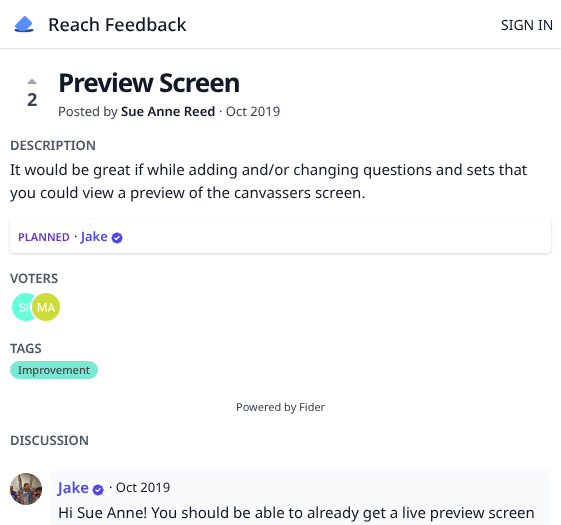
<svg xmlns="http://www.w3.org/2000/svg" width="561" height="525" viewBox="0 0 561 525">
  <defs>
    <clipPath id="clip1"><rect x="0" y="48" width="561" height="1"/></clipPath>
    <clipPath id="clip2"><rect x="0" y="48" width="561" height="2"/></clipPath>
    <clipPath id="clip3"><path d="M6 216H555V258H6ZM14 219H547C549 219 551 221 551 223V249C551 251 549 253 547 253H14C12 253 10 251 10 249V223C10 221 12 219 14 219Z" clip-rule="evenodd"/></clipPath>
    <clipPath id="clip4"><path d="M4 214H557V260H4ZM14 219H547C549 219 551 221 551 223V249C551 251 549 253 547 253H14C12 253 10 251 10 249V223C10 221 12 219 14 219Z" clip-rule="evenodd"/></clipPath>
  </defs>
  <rect width="100%" height="100%" fill="rgb(255,255,255)"/>
  <g clip-path="url(#clip1)">
    <rect x="0" y="1" width="561" height="48" fill="rgba(0,0,0,0.06)" filter="blur(1px)"/>
  </g>
  <g clip-path="url(#clip2)">
    <rect x="0" y="1" width="561" height="48" fill="rgba(0,0,0,0.1)" filter="blur(1.5px)"/>
  </g>
  <image x="14" y="15" width="20" height="18" href="pic1.png"/>
  <text x="48" y="31" font-family="Noto Sans" font-size="18" font-weight="500" fill="rgb(17,24,39)">Reach Feedback</text>
  <text x="501" y="30" font-family="Noto Sans" font-size="14" fill="rgb(17,24,39)">SIGN IN</text>
  <image x="27" y="78" width="10" height="6" href="pic2.png"/>
  <text x="27" y="106" font-family="Noto Sans" font-size="18" font-weight="bold" fill="rgb(55,65,81)">2</text>
  <text x="58" y="92" font-family="Noto Sans" font-size="26" font-weight="bold" letter-spacing="-1" fill="rgb(17,24,39)">Preview Screen</text>
  <text x="58" y="116" font-family="Noto Sans" font-size="13" fill="rgb(55,65,81)">Posted by</text>
  <text x="121" y="116" font-family="Noto Sans" font-size="13" font-weight="600" fill="rgb(17,24,39)">Sue Anne Reed</text>
  <text x="219" y="116" font-family="Noto Sans" font-size="13" fill="rgb(55,65,81)">· Oct 2019</text>
  <text x="10" y="150" font-family="Noto Sans" font-size="13" font-weight="600" fill="rgb(75,85,99)">DESCRIPTION</text>
  <g font-family="Noto Sans" font-size="15" fill="rgb(17,24,39)">
    <text>
      <tspan x="10" y="175">It would be great if while adding and/or changing questions and sets that</tspan>
      <tspan x="10" y="198">you could view a preview of the canvassers screen.</tspan>
    </text>
  </g>
  <g clip-path="url(#clip3)">
    <rect x="10" y="220" width="541" height="34" rx="4" fill="rgba(0,0,0,0.06)" filter="blur(1px)"/>
  </g>
  <g clip-path="url(#clip4)">
    <rect x="10" y="220" width="541" height="34" rx="4" fill="rgba(0,0,0,0.1)" filter="blur(1.5px)"/>
  </g>
  <text x="18" y="241" font-family="Noto Sans" font-size="11" font-weight="600" fill="rgb(100,53,201)">PLANNED</text>
  <text x="74" y="241" font-family="Noto Sans" font-size="13" fill="rgb(17,24,39)">·</text>
  <text x="81" y="241" font-family="Noto Sans" font-size="13" font-weight="600" fill="rgb(79,70,229)">Jake</text>
  <image x="111" y="232" width="12" height="12" href="pic3.png"/>
  <text x="10" y="283" font-family="Noto Sans" font-size="13" font-weight="600" fill="rgb(75,85,99)">VOTERS</text>
  <image x="12" y="293" width="25" height="28" href="pic4.png"/>
  <circle cx="46" cy="307" r="15" fill="none" stroke="rgb(255,255,255)" stroke-width="2"/>
  <image x="32" y="293" width="28" height="28" href="pic5.png"/>
  <text x="10" y="353" font-family="Noto Sans" font-size="13" font-weight="600" fill="rgb(75,85,99)">TAGS</text>
  <rect x="10" y="361" width="88" height="18" rx="9" fill="rgb(123,232,211)"/>
  <text x="18" y="374" font-family="Noto Sans" font-size="11" font-weight="500" fill="rgb(71,71,71)">Improvement</text>
  <text x="236" y="411" font-family="Noto Sans" font-size="11" fill="rgb(55,65,81)">Powered by Fider</text>
  <text x="10" y="445" font-family="Noto Sans" font-size="13" font-weight="600" fill="rgb(75,85,99)">DISCUSSION</text>
  <image x="10" y="473" width="32" height="32" href="pic6.png"/>
  <rect x="50" y="469" width="501" height="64" rx="8" fill="rgb(249,250,251)"/>
  <text x="58" y="493" font-family="Noto Sans" font-size="15" font-weight="600" fill="rgb(79,70,229)">Jake</text>
  <image x="92" y="484" width="12" height="12" href="pic7.png"/>
  <text x="109" y="492" font-family="Noto Sans" font-size="13" fill="rgb(17,24,39)">· Oct 2019</text>
  <text x="58" y="518" font-family="Noto Sans" font-size="15" fill="rgb(17,24,39)">Hi Sue Anne! You should be able to already get a live preview screen</text>
</svg>
